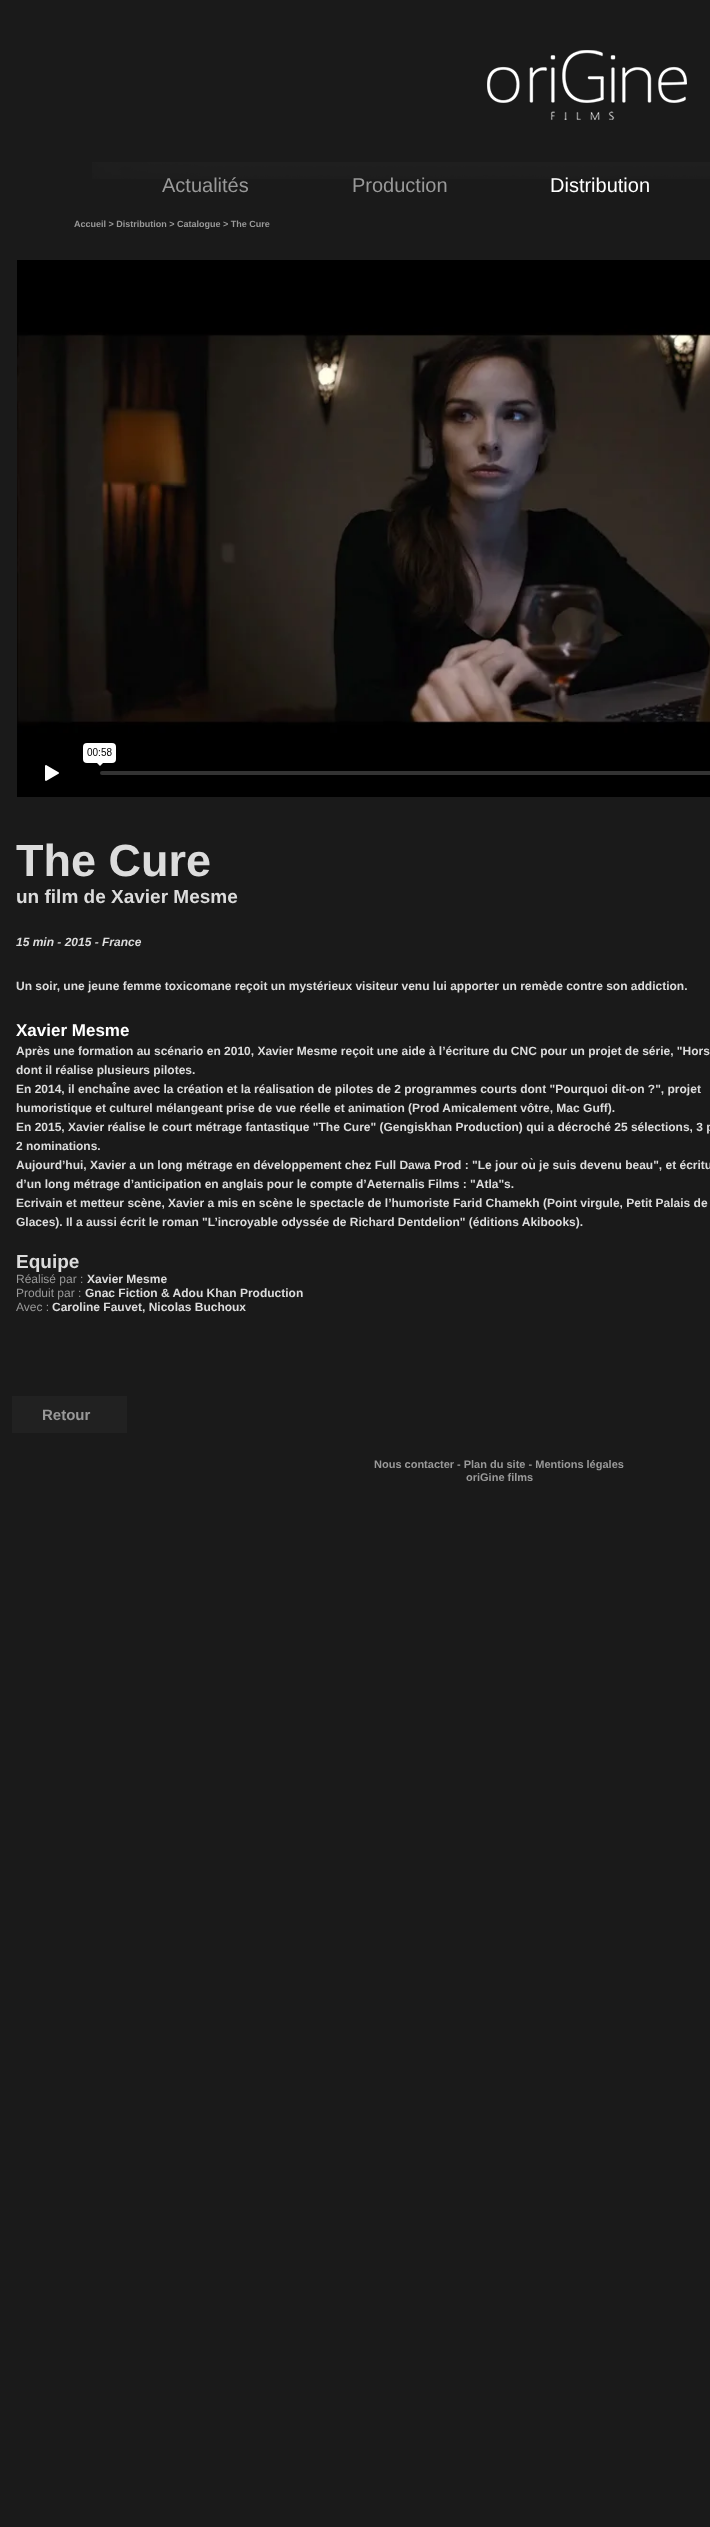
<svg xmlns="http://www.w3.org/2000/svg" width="710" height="2527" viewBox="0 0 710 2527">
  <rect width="100%" height="100%" fill="rgb(26,26,26)"/>
  <image x="487" y="50" width="200" height="70" href="pic1.png"/>
  <image x="92" y="162" width="618" height="17" href="pic2.png"/>
  <g font-family="Liberation Sans" font-size="20" fill="rgb(153,153,153)">
    <text x="162" y="192">Actualités</text>
    <text x="352" y="192">Production</text>
  </g>
  <text x="550" y="192" font-family="Liberation Sans" font-size="20" fill="rgb(255,255,255)">Distribution</text>
  <text x="74" y="227" font-family="Liberation Sans" font-size="9" font-weight="bold" fill="rgb(153,153,153)">Accueil &gt; Distribution &gt; Catalogue &gt; The Cure</text>
  <image x="17" y="260" width="693" height="537" href="pic3.png"/>
  <text x="16" y="876" font-family="Liberation Sans" font-size="45" font-weight="bold" fill="rgb(220,220,220)">The Cure</text>
  <text x="16" y="903" font-family="Liberation Sans" font-size="19" font-weight="bold" fill="rgb(220,220,220)">un film de Xavier Mesme</text>
  <text x="16" y="946" font-family="Liberation Sans" font-size="12" font-weight="bold" font-style="italic" fill="rgb(220,220,220)">15 min - 2015 - France</text>
  <text x="16" y="990" font-family="Liberation Sans" font-size="12" font-weight="bold" fill="rgb(220,220,220)">Un soir, une jeune femme toxicomane reçoit un mystérieux visiteur venu lui apporter un remède contre son addiction.</text>
  <text x="16" y="1036" font-family="Liberation Sans" font-size="17" font-weight="bold" fill="rgb(255,255,255)">Xavier Mesme</text>
  <g font-family="Liberation Sans" font-size="12" font-weight="bold" fill="rgb(220,220,220)">
    <text>
      <tspan x="16" y="1055">Après une formation au scénario en 2010, Xavier Mesme reçoit une aide à l’écriture du CNC pour un projet de série, "Hors</tspan>
      <tspan x="16" y="1074">dont il réalise plusieurs pilotes.</tspan>
      <tspan x="16" y="1093">En 2014, il enchaîne avec la création et la réalisation de pilotes de 2 programmes courts dont "Pourquoi dit-on ?", projet</tspan>
      <tspan x="16" y="1112">humoristique et culturel mélangeant prise de vue réelle et animation (Prod Amicalement vôtre, Mac Guff).</tspan>
      <tspan x="16" y="1131">En 2015, Xavier réalise le court métrage fantastique "The Cure" (Gengiskhan Production) qui a décroché 25 sélections, 3 p</tspan>
      <tspan x="16" y="1150">2 nominations.</tspan>
      <tspan x="16" y="1169">Aujourd’hui, Xavier a un long métrage en développement chez Full Dawa Prod : "Le jour où je suis devenu beau", et écritu</tspan>
      <tspan x="16" y="1188">d’un long métrage d’anticipation en anglais pour le compte d’Aeternalis Films : "Atla"s.</tspan>
      <tspan x="16" y="1207">Ecrivain et metteur scène, Xavier a mis en scène le spectacle de l’humoriste Farid Chamekh (Point virgule, Petit Palais de</tspan>
      <tspan x="16" y="1226">Glaces). Il a aussi écrit le roman "L’incroyable odyssée de Richard Dentdelion" (éditions Akibooks).</tspan>
    </text>
  </g>
  <text x="16" y="1268" font-family="Liberation Sans" font-size="19" font-weight="bold" fill="rgb(220,220,220)">Equipe</text>
  <text x="16" y="1283" font-family="Liberation Sans" font-size="12" fill="rgb(153,153,153)">Réalisé par :</text>
  <text x="87" y="1283" font-family="Liberation Sans" font-size="12" font-weight="bold" fill="rgb(220,220,220)">Xavier Mesme</text>
  <text x="16" y="1297" font-family="Liberation Sans" font-size="12" fill="rgb(153,153,153)">Produit par :</text>
  <text x="85" y="1297" font-family="Liberation Sans" font-size="12" font-weight="bold" fill="rgb(220,220,220)">Gnac Fiction &amp; Adou Khan Production</text>
  <text x="16" y="1311" font-family="Liberation Sans" font-size="12" fill="rgb(153,153,153)">Avec :</text>
  <text x="52" y="1311" font-family="Liberation Sans" font-size="12" font-weight="bold" fill="rgb(220,220,220)">Caroline Fauvet, Nicolas Buchoux</text>
  <rect x="12" y="1396" width="115" height="37" fill="rgb(33,33,33)"/>
  <text x="42" y="1420" font-family="Liberation Sans" font-size="15" font-weight="bold" fill="rgb(153,153,153)">Retour</text>
  <g font-family="Liberation Sans" font-size="11" font-weight="bold" fill="rgb(153,153,153)">
    <text x="374" y="1468">Nous contacter</text>
    <text x="457" y="1468">- Plan du site - Mentions légales</text>
    <text x="466" y="1481">oriGine films</text>
  </g>
</svg>
